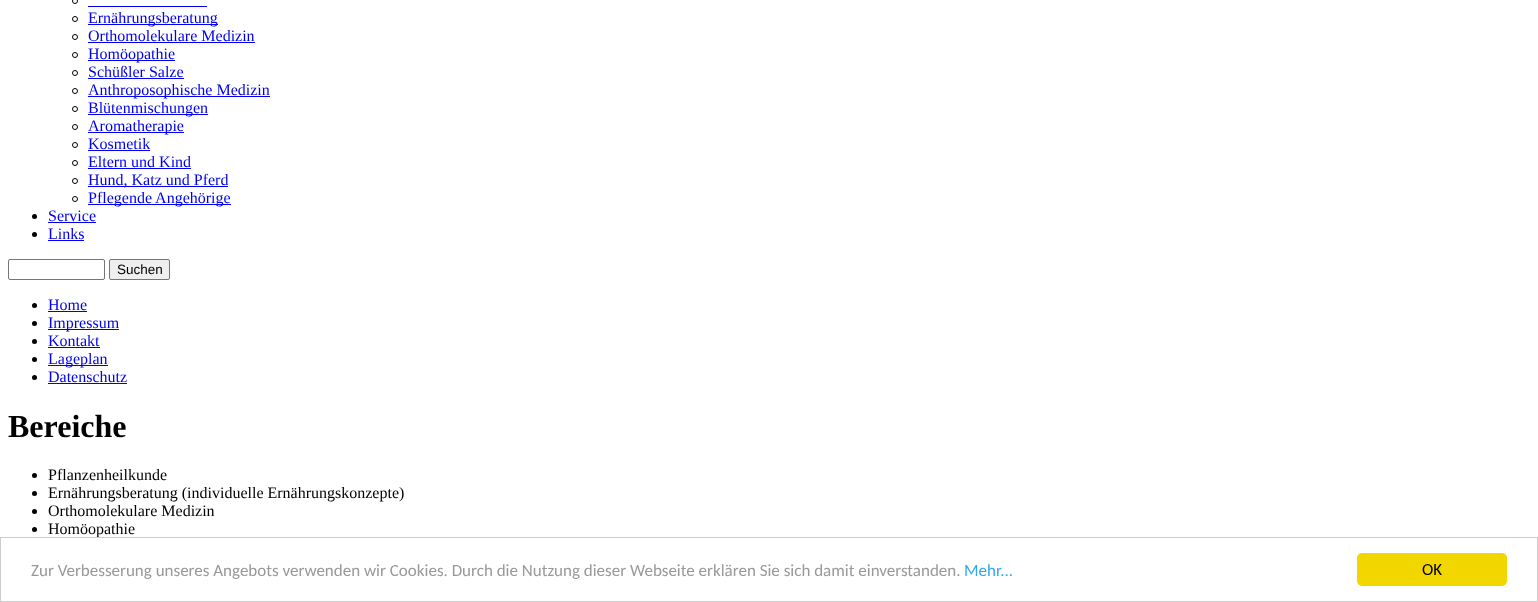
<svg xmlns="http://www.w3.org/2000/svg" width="1538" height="602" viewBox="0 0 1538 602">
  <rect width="100%" height="100%" fill="rgb(255,255,255)"/>
  <circle cx="75" cy="1" r="2.5" fill="none" stroke="rgb(0,0,0)"/>
  <rect x="88" y="6" width="119" height="1" fill="rgb(0,0,238)"/>
  <circle cx="75" cy="19" r="2.5" fill="none" stroke="rgb(0,0,0)"/>
  <rect x="88" y="24" width="130" height="1" fill="rgb(0,0,238)"/>
  <text x="88" y="23" font-family="Liberation Serif" font-size="16" fill="rgb(0,0,238)">Ernährungsberatung</text>
  <circle cx="75" cy="37" r="2.5" fill="none" stroke="rgb(0,0,0)"/>
  <text x="88" y="41" font-family="Liberation Serif" font-size="16" fill="rgb(0,0,238)">Orthomolekulare Medizin</text>
  <rect x="88" y="42" width="167" height="1" fill="rgb(0,0,238)"/>
  <circle cx="75" cy="55" r="2.5" fill="none" stroke="rgb(0,0,0)"/>
  <rect x="88" y="60" width="87" height="1" fill="rgb(0,0,238)"/>
  <text x="88" y="59" font-family="Liberation Serif" font-size="16" fill="rgb(0,0,238)">Homöopathie</text>
  <circle cx="75" cy="73" r="2.5" fill="none" stroke="rgb(0,0,0)"/>
  <text x="88" y="77" font-family="Liberation Serif" font-size="16" fill="rgb(0,0,238)">Schüßler Salze</text>
  <rect x="88" y="78" width="96" height="1" fill="rgb(0,0,238)"/>
  <circle cx="75" cy="91" r="2.5" fill="none" stroke="rgb(0,0,0)"/>
  <rect x="88" y="96" width="182" height="1" fill="rgb(0,0,238)"/>
  <text x="88" y="95" font-family="Liberation Serif" font-size="16" fill="rgb(0,0,238)">Anthroposophische Medizin</text>
  <circle cx="75" cy="109" r="2.5" fill="none" stroke="rgb(0,0,0)"/>
  <rect x="88" y="114" width="120" height="1" fill="rgb(0,0,238)"/>
  <text x="88" y="113" font-family="Liberation Serif" font-size="16" fill="rgb(0,0,238)">Blütenmischungen</text>
  <circle cx="75" cy="127" r="2.5" fill="none" stroke="rgb(0,0,0)"/>
  <rect x="88" y="132" width="96" height="1" fill="rgb(0,0,238)"/>
  <text x="88" y="131" font-family="Liberation Serif" font-size="16" fill="rgb(0,0,238)">Aromatherapie</text>
  <circle cx="75" cy="145" r="2.5" fill="none" stroke="rgb(0,0,0)"/>
  <text x="88" y="149" font-family="Liberation Serif" font-size="16" fill="rgb(0,0,238)">Kosmetik</text>
  <rect x="88" y="150" width="62" height="1" fill="rgb(0,0,238)"/>
  <circle cx="75" cy="163" r="2.5" fill="none" stroke="rgb(0,0,0)"/>
  <text x="88" y="167" font-family="Liberation Serif" font-size="16" fill="rgb(0,0,238)">Eltern und Kind</text>
  <rect x="88" y="168" width="103" height="1" fill="rgb(0,0,238)"/>
  <circle cx="75" cy="181" r="2.5" fill="none" stroke="rgb(0,0,0)"/>
  <rect x="88" y="186" width="140" height="1" fill="rgb(0,0,238)"/>
  <text x="88" y="185" font-family="Liberation Serif" font-size="16" fill="rgb(0,0,238)">Hund, Katz und Pferd</text>
  <circle cx="75" cy="199" r="2.5" fill="none" stroke="rgb(0,0,0)"/>
  <rect x="88" y="204" width="143" height="1" fill="rgb(0,0,238)"/>
  <text x="88" y="203" font-family="Liberation Serif" font-size="16" fill="rgb(0,0,238)">Pflegende Angehörige</text>
  <circle cx="34.5" cy="216.5" r="2.5" fill="rgb(0,0,0)"/>
  <text x="48" y="221" font-family="Liberation Serif" font-size="16" fill="rgb(0,0,238)">Service</text>
  <rect x="48" y="222" width="48" height="1" fill="rgb(0,0,238)"/>
  <circle cx="34.5" cy="234.5" r="2.5" fill="rgb(0,0,0)"/>
  <text x="48" y="239" font-family="Liberation Serif" font-size="16" fill="rgb(0,0,238)">Links</text>
  <rect x="48" y="240" width="36" height="1" fill="rgb(0,0,238)"/>
  <rect x="8.5" y="259.5" width="96" height="20" rx="1.5" fill="none" stroke="rgb(118,118,118)"/>
  <rect x="109.5" y="259.5" width="60" height="20" rx="1.5" fill="rgb(239,239,239)" stroke="rgb(118,118,118)"/>
  <text x="117" y="274" font-family="Liberation Sans" font-size="13.5" fill="rgb(0,0,0)">Suchen</text>
  <circle cx="34.5" cy="305.5" r="2.5" fill="rgb(0,0,0)"/>
  <text x="48" y="310" font-family="Liberation Serif" font-size="16" fill="rgb(0,0,238)">Home</text>
  <rect x="48" y="311" width="39" height="1" fill="rgb(0,0,238)"/>
  <circle cx="34.5" cy="323.5" r="2.5" fill="rgb(0,0,0)"/>
  <rect x="48" y="329" width="71" height="1" fill="rgb(0,0,238)"/>
  <text x="48" y="328" font-family="Liberation Serif" font-size="16" fill="rgb(0,0,238)">Impressum</text>
  <circle cx="34.5" cy="341.5" r="2.5" fill="rgb(0,0,0)"/>
  <text x="48" y="346" font-family="Liberation Serif" font-size="16" fill="rgb(0,0,238)">Kontakt</text>
  <rect x="48" y="347" width="52" height="1" fill="rgb(0,0,238)"/>
  <circle cx="34.5" cy="359.5" r="2.5" fill="rgb(0,0,0)"/>
  <rect x="48" y="365" width="60" height="1" fill="rgb(0,0,238)"/>
  <text x="48" y="364" font-family="Liberation Serif" font-size="16" fill="rgb(0,0,238)">Lageplan</text>
  <circle cx="34.5" cy="377.5" r="2.5" fill="rgb(0,0,0)"/>
  <text x="48" y="382" font-family="Liberation Serif" font-size="16" fill="rgb(0,0,238)">Datenschutz</text>
  <rect x="48" y="383" width="79" height="1" fill="rgb(0,0,238)"/>
  <text x="8" y="437" font-family="Liberation Serif" font-size="32" font-weight="bold" fill="rgb(0,0,0)">Bereiche</text>
  <circle cx="34.5" cy="475.5" r="2.5" fill="rgb(0,0,0)"/>
  <text x="48" y="480" font-family="Liberation Serif" font-size="16" fill="rgb(0,0,0)">Pflanzenheilkunde</text>
  <circle cx="34.5" cy="493.5" r="2.5" fill="rgb(0,0,0)"/>
  <text x="48" y="498" font-family="Liberation Serif" font-size="16" fill="rgb(0,0,0)">Ernährungsberatung (individuelle Ernährungskonzepte)</text>
  <circle cx="34.5" cy="511.5" r="2.5" fill="rgb(0,0,0)"/>
  <text x="48" y="516" font-family="Liberation Serif" font-size="16" fill="rgb(0,0,0)">Orthomolekulare Medizin</text>
  <circle cx="34.5" cy="529.5" r="2.5" fill="rgb(0,0,0)"/>
  <text x="48" y="534" font-family="Liberation Serif" font-size="16" fill="rgb(0,0,0)">Homöopathie</text>
  <rect x="0.5" y="537.5" width="1537" height="64" fill="none" stroke="rgb(204,204,204)"/>
  <text x="31" y="576" font-family="Carlito" font-size="17" fill="rgb(153,153,153)">Zur Verbesserung unseres Angebots verwenden wir Cookies. Durch die Nutzung dieser Webseite erklären Sie sich damit einverstanden.</text>
  <text x="964" y="576" font-family="Carlito" font-size="17" fill="rgb(49,168,240)">Mehr...</text>
  <rect x="1357" y="553" width="150" height="33" rx="5" fill="rgb(241,214,0)"/>
  <text x="1422" y="575" font-family="Carlito" font-size="17" fill="rgb(0,0,0)">OK</text>
</svg>
